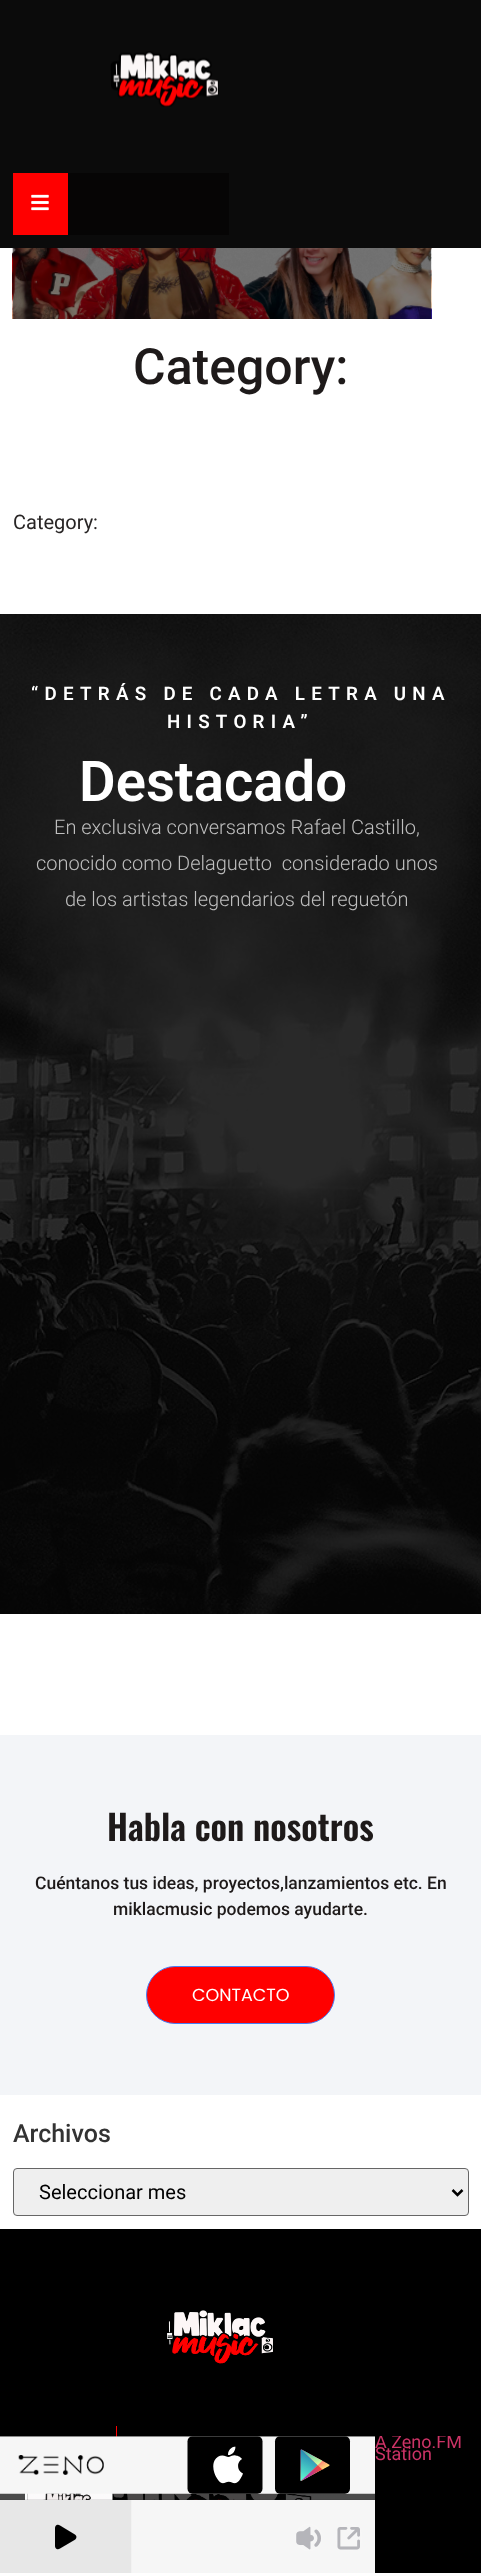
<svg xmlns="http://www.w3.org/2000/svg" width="481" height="2573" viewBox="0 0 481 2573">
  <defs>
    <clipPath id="clip1"><rect x="0" y="2436" width="481" height="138"/></clipPath>
  </defs>
  <rect width="100%" height="100%" fill="rgb(255,255,255)"/>
  <rect x="0" y="0" width="481" height="248" fill="rgb(11,11,11)"/>
  <image x="110" y="51" width="109" height="56" href="pic1.png"/>
  <rect x="68" y="173" width="161" height="62" fill="rgb(6,5,5)"/>
  <rect x="13" y="173" width="55" height="62" fill="rgb(255,0,0)"/>
  <image x="31" y="194" width="18" height="17" href="pic2.png"/>
  <image x="12" y="248" width="420" height="71" href="pic3.png"/>
  <text x="133" y="384" font-family="Roboto" font-size="50" font-weight="500" fill="rgb(30,26,26)">Category:</text>
  <text x="13" y="529" font-family="Roboto" font-size="20" fill="rgb(40,37,37)">Category:</text>
  <image x="0" y="614" width="481" height="1000" href="pic4.png"/>
  <g font-family="Roboto" font-size="18.75" font-weight="600" letter-spacing="6.25" fill="rgb(255,255,255)">
    <text x="31" y="700">“DETRÁS DE CADA LETRA UNA</text>
    <text x="167" y="728">HISTORIA”</text>
  </g>
  <text x="79" y="801" font-family="Roboto" font-size="56.25" font-weight="600" fill="rgb(255,255,255)">Destacado</text>
  <g font-family="Roboto" font-size="20" font-weight="300" fill="rgb(191,191,191)">
    <text x="54" y="834">En exclusiva conversamos Rafael Castillo,</text>
    <text x="36" y="870" xml:space="preserve">conocido como Delaguetto  considerado unos</text>
    <text x="65" y="906">de los artistas legendarios del reguetón</text>
  </g>
  <rect x="0" y="1735" width="481" height="360" fill="rgb(243,245,248)"/>
  <text x="107" y="1841" font-family="Oswald" font-size="35" font-weight="600" fill="rgb(30,26,26)">Habla con nosotros</text>
  <g font-family="Roboto" font-size="17.5" font-weight="500" fill="rgb(30,26,26)">
    <text x="35" y="1889">Cuéntanos tus ideas, proyectos,lanzamientos etc. En</text>
    <text x="113" y="1915">miklacmusic podemos ayudarte.</text>
  </g>
  <rect x="146.5" y="1966.5" width="188" height="57" rx="28.5" fill="rgb(255,0,0)" stroke="rgb(70,127,247)"/>
  <text x="192" y="2001" font-family="Poppins" font-size="17.5" fill="rgb(255,255,255)">CONTACTO</text>
  <text x="13" y="2142" font-family="Roboto" font-size="25" font-weight="500" fill="rgb(51,51,51)">Archivos</text>
  <rect x="13.5" y="2168.5" width="455" height="47" rx="3.5" fill="rgb(239,239,239)" stroke="rgb(102,102,102)"/>
  <path d="M452.5 2190L457.5 2195L462.5 2190" fill="none" stroke="rgb(0,0,0)" stroke-width="2.5"/>
  <text x="39" y="2199" font-family="Roboto" font-size="20" fill="rgb(0,0,0)">Seleccionar mes</text>
  <rect x="0" y="2229" width="481" height="344" fill="rgb(0,0,0)"/>
  <image x="167" y="2310" width="106" height="54" href="pic5.png"/>
  <rect x="116" y="2426" width="1" height="11" fill="rgb(255,0,0)"/>
  <image x="0" y="2436" width="375" height="137" href="pic6.png"/>
  <g clip-path="url(#clip1)">
    <text x="375" y="2448" font-family="Roboto" font-size="18" fill="rgb(204,51,102)">A Zeno.FM</text>
  </g>
  <text x="375" y="2460" font-family="Roboto" font-size="18" fill="rgb(204,51,102)">Station</text>
</svg>
